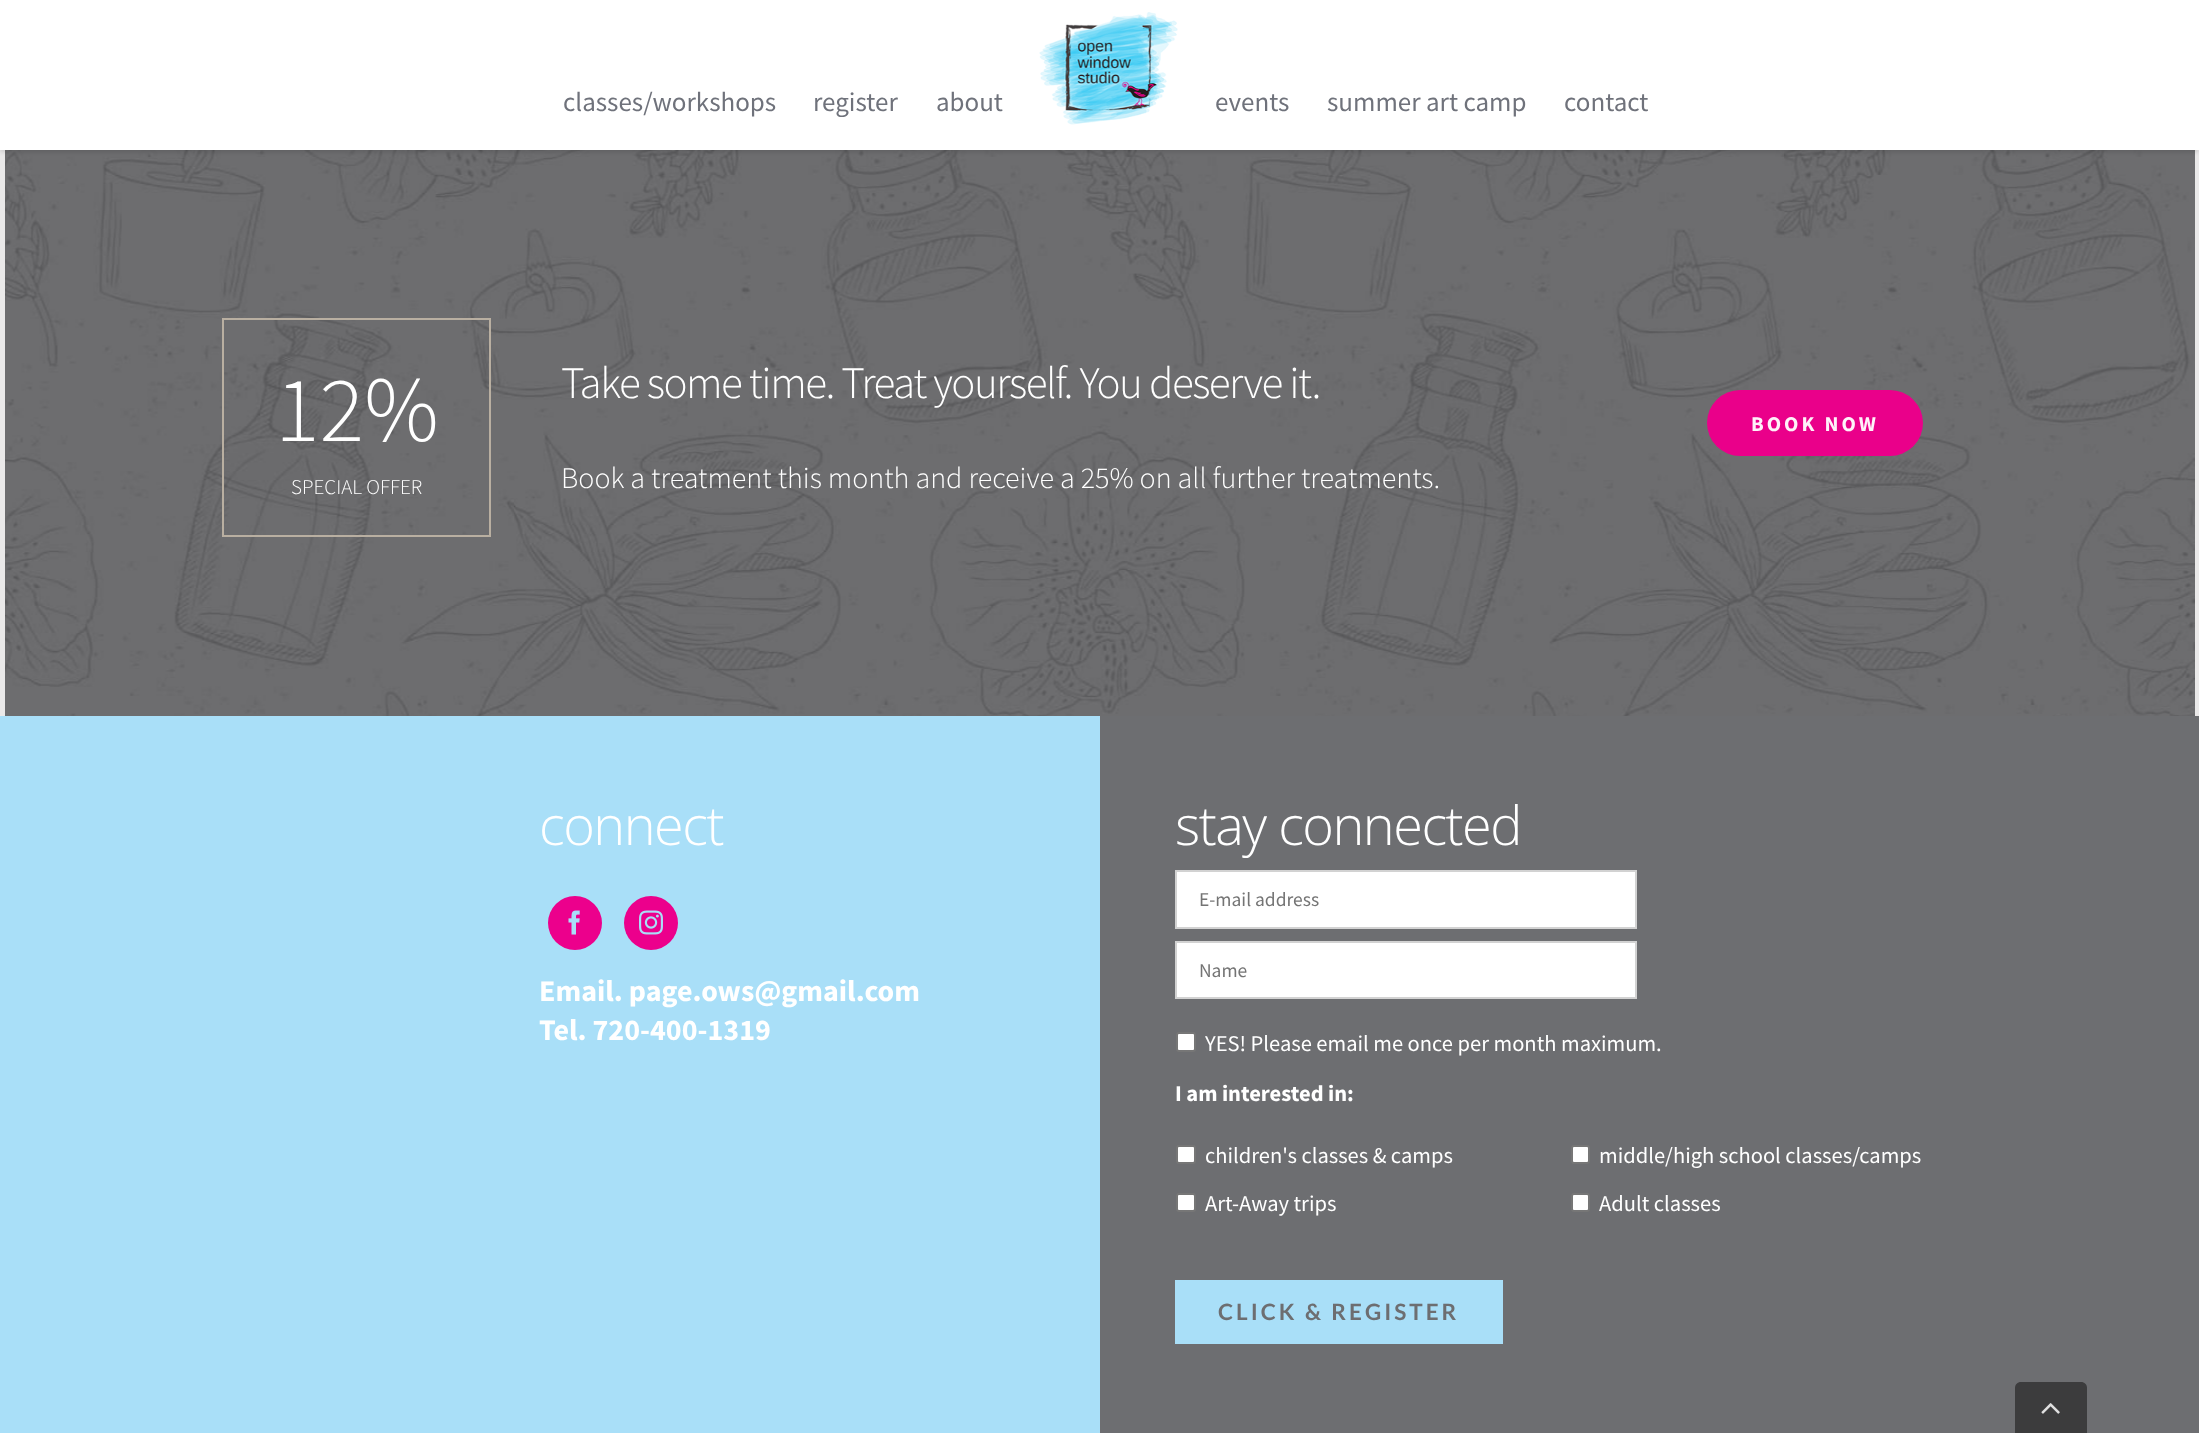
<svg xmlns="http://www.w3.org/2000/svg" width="2199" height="1433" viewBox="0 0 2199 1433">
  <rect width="100%" height="100%" fill="rgb(169,223,248)"/>
  <rect x="2195" y="150" width="4" height="566" fill="rgb(234,233,233)"/>
  <rect x="0" y="150" width="5" height="566" fill="rgb(234,233,233)"/>
  <image x="5" y="150" width="2190" height="566" href="pic2.png"/>
  <rect x="0" y="2" width="2199" height="150" fill="rgba(0,0,0,0.12)" filter="blur(2px)"/>
  <rect x="0" y="0" width="2199" height="150" fill="rgb(255,255,255)"/>
  <g font-family="Source Sans Pro" font-size="27" fill="rgb(111,114,123)">
    <text x="563" y="111">classes/workshops</text>
    <text x="813" y="111">register</text>
    <text x="936" y="111">about</text>
  </g>
  <image x="1039" y="12" width="139" height="113" href="pic1.png"/>
  <g font-family="Source Sans Pro" font-size="27" fill="rgb(111,114,123)">
    <text x="1215" y="111">events</text>
    <text x="1327" y="111">summer art camp</text>
    <text x="1564" y="111">contact</text>
  </g>
  <rect x="223" y="319" width="267" height="217" fill="none" stroke="rgb(185,175,161)" stroke-width="2"/>
  <text x="275" y="441" font-family="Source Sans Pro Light" font-size="93" font-weight="300" fill="rgb(255,255,255)">12%</text>
  <text x="291" y="494" font-family="Source Sans Pro Light" font-size="21" font-weight="300" fill="rgb(255,255,255)">SPECIAL OFFER</text>
  <text x="561" y="398" font-family="Source Sans Pro Light" font-size="45" font-weight="300" letter-spacing="-1.5" fill="rgb(255,255,255)">Take some time. Treat yourself. You deserve it.</text>
  <text x="561" y="488" font-family="Source Sans Pro Light" font-size="30" font-weight="300" fill="rgb(255,255,255)">Book a treatment this month and receive a 25% on all further treatments.</text>
  <rect x="1707" y="390" width="216" height="66" rx="33" fill="rgb(234,0,138)"/>
  <text x="1751" y="431" font-family="Source Sans Pro" font-size="21" font-weight="bold" letter-spacing="3" fill="rgb(254,242,249)">BOOK NOW</text>
  <text x="539" y="845" font-family="Open Sans" font-size="54" font-weight="300" letter-spacing="-1.5" fill="rgb(255,255,255)">connect</text>
  <circle cx="575" cy="923" r="27" fill="rgb(236,0,140)"/>
  <image x="568" y="910" width="12" height="25" href="pic3.png"/>
  <circle cx="651" cy="923" r="27" fill="rgb(236,0,140)"/>
  <image x="639" y="910" width="24" height="25" href="pic4.png"/>
  <g font-family="Source Sans Pro" font-size="30" font-weight="bold" fill="rgb(255,255,255)">
    <text>
      <tspan x="539" y="1001">Email. page.ows@gmail.com</tspan>
      <tspan x="539" y="1040">Tel. 720-400-1319</tspan>
    </text>
  </g>
  <rect x="1100" y="716" width="1099" height="717" fill="rgb(109,110,113)"/>
  <text x="1175" y="845" font-family="Open Sans" font-size="54" font-weight="300" letter-spacing="-1.5" fill="rgb(255,255,255)">stay connected</text>
  <rect x="1176" y="871" width="460" height="57" fill="rgb(255,255,255)" stroke="rgb(210,210,210)" stroke-width="2"/>
  <text x="1199" y="906" font-family="Source Sans Pro" font-size="19.5" fill="rgb(116,116,116)">E-mail address</text>
  <rect x="1176" y="942" width="460" height="56" fill="rgb(255,255,255)" stroke="rgb(210,210,210)" stroke-width="2"/>
  <text x="1199" y="977" font-family="Source Sans Pro" font-size="19.5" fill="rgb(116,116,116)">Name</text>
  <rect x="1177" y="1033" width="18" height="18" rx="2" fill="rgb(255,255,255)" stroke="rgb(118,118,118)" stroke-width="2"/>
  <text x="1205" y="1051" font-family="Source Sans Pro" font-size="22.5" fill="rgb(255,255,255)">YES! Please email me once per month maximum.</text>
  <text x="1175" y="1101" font-family="Source Sans Pro" font-size="22.5" font-weight="bold" fill="rgb(255,255,255)">I am interested in:</text>
  <rect x="1177" y="1146" width="18" height="17" rx="2" fill="rgb(255,255,255)" stroke="rgb(118,118,118)" stroke-width="2"/>
  <text x="1205" y="1163" font-family="Source Sans Pro" font-size="22.5" fill="rgb(255,255,255)">children's classes &amp; camps</text>
  <rect x="1572" y="1146" width="17" height="17" rx="2" fill="rgb(255,255,255)" stroke="rgb(118,118,118)" stroke-width="2"/>
  <text x="1599" y="1163" font-family="Source Sans Pro" font-size="22.5" fill="rgb(255,255,255)">middle/high school classes/camps</text>
  <rect x="1177" y="1194" width="18" height="17" rx="2" fill="rgb(255,255,255)" stroke="rgb(118,118,118)" stroke-width="2"/>
  <text x="1205" y="1211" font-family="Source Sans Pro" font-size="22.5" fill="rgb(255,255,255)">Art-Away trips</text>
  <rect x="1572" y="1194" width="17" height="17" rx="2" fill="rgb(255,255,255)" stroke="rgb(118,118,118)" stroke-width="2"/>
  <text x="1599" y="1211" font-family="Source Sans Pro" font-size="22.5" fill="rgb(255,255,255)">Adult classes</text>
  <rect x="1175" y="1280" width="328" height="64" fill="rgb(169,223,248)"/>
  <text x="1218" y="1320" font-family="Lato" font-size="22.5" font-weight="bold" letter-spacing="3" fill="rgb(109,110,113)">CLICK &amp; REGISTER</text>
  <path d="M2021 1382H2081C2084.5 1382 2087 1384.5 2087 1388V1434H2015V1388C2015 1384.5 2017.5 1382 2021 1382Z" fill="rgb(60,60,61)"/>
  <image x="2041" y="1403" width="19" height="11" href="pic5.png"/>
</svg>
